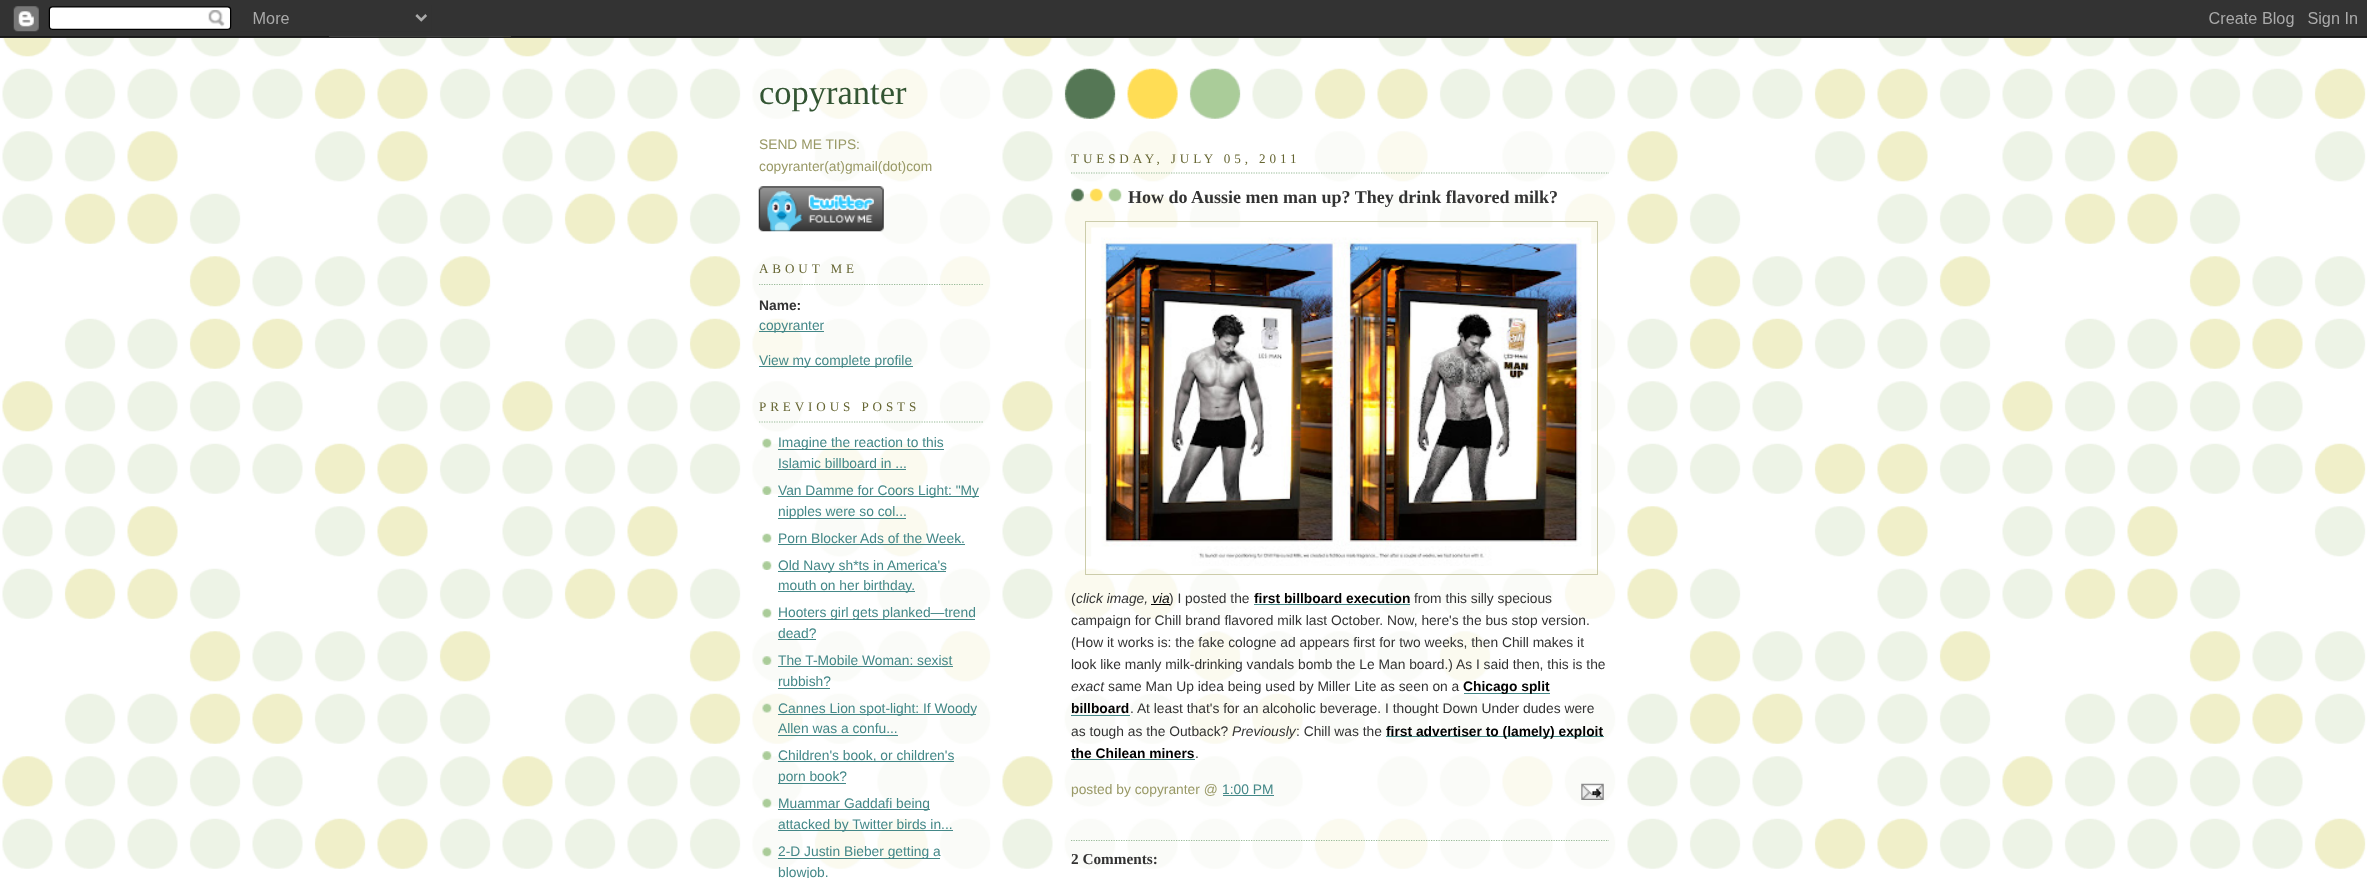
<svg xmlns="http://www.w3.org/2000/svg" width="2367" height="878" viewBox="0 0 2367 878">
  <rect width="100%" height="100%" fill="rgb(255,255,255)"/>
  <image x="2" y="36" width="2364" height="833" href="pic1.png"/>
  <image x="0" y="0" width="2367" height="38" href="pic2.png"/>
  <image x="1064" y="68" width="177" height="52" href="pic3.png"/>
  <image x="752" y="68" width="239" height="801" href="pic4.png"/>
  <text x="759" y="104" font-family="Liberation Serif" font-size="34.5" fill="rgb(51,85,51)">copyranter</text>
  <g font-family="Liberation Sans" font-size="13.8" fill="rgb(153,153,102)">
    <text>
      <tspan x="759" y="149">SEND ME TIPS:</tspan>
      <tspan x="759" y="171">copyranter(at)gmail(dot)com</tspan>
    </text>
  </g>
  <image x="758" y="186" width="126" height="46" href="pic5.png"/>
  <path d="M759 284.5H984" fill="none" stroke="rgb(153,187,153)" stroke-width="1.2" stroke-dasharray="1.25 1.25"/>
  <text x="759" y="273" font-family="Liberation Serif" font-size="13.1" letter-spacing="3.9" fill="rgb(102,102,51)">ABOUT ME</text>
  <text x="759" y="310" font-family="Liberation Sans" font-size="13.8" font-weight="bold" fill="rgb(51,51,51)">Name:</text>
  <rect x="759" y="331" width="65" height="1" fill="rgb(68,136,136)"/>
  <text x="759" y="330" font-family="Liberation Sans" font-size="13.8" fill="rgb(68,136,136)">copyranter</text>
  <rect x="759" y="366" width="154" height="1" fill="rgb(68,136,136)"/>
  <text x="759" y="365" font-family="Liberation Sans" font-size="13.8" fill="rgb(68,136,136)">View my complete profile</text>
  <path d="M759 422H984" fill="none" stroke="rgb(153,187,153)" stroke-width="1.2" stroke-dasharray="1.25 1.25"/>
  <text x="759" y="411" font-family="Liberation Serif" font-size="13.1" letter-spacing="3.9" fill="rgb(102,102,51)">PREVIOUS POSTS</text>
  <image x="762" y="438" width="10" height="10" href="pic6.png"/>
  <rect x="778" y="449" width="166" height="1" fill="rgb(68,136,136)"/>
  <g font-family="Liberation Sans" font-size="13.8" fill="rgb(68,136,136)">
    <text>
      <tspan x="778" y="447">Imagine the reaction to this</tspan>
      <tspan x="778" y="468">Islamic billboard in ...</tspan>
    </text>
  </g>
  <rect x="778" y="469" width="128" height="1" fill="rgb(68,136,136)"/>
  <image x="762" y="486" width="10" height="9" href="pic7.png"/>
  <rect x="778" y="496" width="201" height="1" fill="rgb(68,136,136)"/>
  <text x="778" y="495" font-family="Liberation Sans" font-size="13.8" fill="rgb(68,136,136)">Van Damme for Coors Light: "My</text>
  <rect x="778" y="518" width="128" height="1" fill="rgb(68,136,136)"/>
  <text x="778" y="516" font-family="Liberation Sans" font-size="13.8" fill="rgb(68,136,136)">nipples were so col...</text>
  <image x="762" y="533" width="10" height="10" href="pic8.png"/>
  <text x="778" y="543" font-family="Liberation Sans" font-size="13.8" fill="rgb(68,136,136)">Porn Blocker Ads of the Week.</text>
  <rect x="778" y="544" width="187" height="1" fill="rgb(68,136,136)"/>
  <image x="762" y="561" width="10" height="9" href="pic9.png"/>
  <rect x="778" y="571" width="168" height="1" fill="rgb(68,136,136)"/>
  <text x="778" y="570" font-family="Liberation Sans" font-size="13.8" fill="rgb(68,136,136)">Old Navy sh*ts in America's</text>
  <rect x="778" y="591" width="137" height="1" fill="rgb(68,136,136)"/>
  <text x="778" y="590" font-family="Liberation Sans" font-size="13.8" fill="rgb(68,136,136)">mouth on her birthday.</text>
  <image x="762" y="608" width="10" height="10" href="pic8.png"/>
  <rect x="778" y="619" width="197" height="1" fill="rgb(68,136,136)"/>
  <g font-family="Liberation Sans" font-size="13.8" fill="rgb(68,136,136)">
    <text>
      <tspan x="778" y="617">Hooters girl gets planked—trend</tspan>
      <tspan x="778" y="638">dead?</tspan>
    </text>
  </g>
  <rect x="778" y="639" width="38" height="1" fill="rgb(68,136,136)"/>
  <image x="762" y="656" width="10" height="9" href="pic10.png"/>
  <text x="778" y="665" font-family="Liberation Sans" font-size="13.8" fill="rgb(68,136,136)">The T-Mobile Woman: sexist</text>
  <rect x="778" y="666" width="175" height="1" fill="rgb(68,136,136)"/>
  <text x="778" y="686" font-family="Liberation Sans" font-size="13.8" fill="rgb(68,136,136)">rubbish?</text>
  <rect x="778" y="688" width="52" height="1" fill="rgb(68,136,136)"/>
  <image x="762" y="703" width="10" height="10" href="pic11.png"/>
  <rect x="778" y="714" width="198" height="1" fill="rgb(68,136,136)"/>
  <g font-family="Liberation Sans" font-size="13.8" fill="rgb(68,136,136)">
    <text>
      <tspan x="778" y="713">Cannes Lion spot-light: If Woody</tspan>
      <tspan x="778" y="733">Allen was a confu...</tspan>
    </text>
  </g>
  <rect x="778" y="735" width="120" height="1" fill="rgb(68,136,136)"/>
  <image x="762" y="751" width="10" height="9" href="pic12.png"/>
  <rect x="778" y="761" width="176" height="1" fill="rgb(68,136,136)"/>
  <text x="778" y="760" font-family="Liberation Sans" font-size="13.8" fill="rgb(68,136,136)">Children's book, or children's</text>
  <rect x="778" y="783" width="68" height="1" fill="rgb(68,136,136)"/>
  <text x="778" y="781" font-family="Liberation Sans" font-size="13.8" fill="rgb(68,136,136)">porn book?</text>
  <image x="762" y="798" width="10" height="10" href="pic13.png"/>
  <rect x="778" y="809" width="152" height="1" fill="rgb(68,136,136)"/>
  <text x="778" y="808" font-family="Liberation Sans" font-size="13.8" fill="rgb(68,136,136)">Muammar Gaddafi being</text>
  <rect x="778" y="830" width="175" height="1" fill="rgb(68,136,136)"/>
  <text x="778" y="829" font-family="Liberation Sans" font-size="13.8" fill="rgb(68,136,136)">attacked by Twitter birds in...</text>
  <image x="762" y="847" width="10" height="10" href="pic14.png"/>
  <rect x="778" y="858" width="162" height="1" fill="rgb(68,136,136)"/>
  <g font-family="Liberation Sans" font-size="13.8" fill="rgb(68,136,136)">
    <text>
      <tspan x="778" y="856">2-D Justin Bieber getting a</tspan>
      <tspan x="778" y="877">blowjob.</tspan>
    </text>
  </g>
  <image x="1065" y="131" width="551" height="738" href="pic15.png"/>
  <path d="M1071 173H1609" fill="none" stroke="rgb(153,187,153)" stroke-width="1.2" stroke-dasharray="1.25 1.25"/>
  <text x="1071" y="163" font-family="Liberation Serif" font-size="13.1" letter-spacing="3.9" fill="rgb(102,102,51)">TUESDAY, JULY 05, 2011</text>
  <image x="1071" y="188" width="51" height="14" href="pic16.png"/>
  <text x="1128" y="203" font-family="Liberation Serif" font-size="18" font-weight="bold" fill="rgb(51,51,51)">How do Aussie men man up? They drink flavored milk?</text>
  <rect x="1085.5" y="221.5" width="512" height="353" fill="none" stroke="rgb(204,204,170)"/>
  <image x="1091" y="227" width="501" height="339" href="pic17.png"/>
  <text x="1071" y="603" font-family="Liberation Sans" font-size="13.8" fill="rgb(51,51,51)">(</text>
  <text x="1076" y="603" font-family="Liberation Sans" font-size="13.8" font-style="italic" fill="rgb(51,51,51)">click image,</text>
  <text x="1152" y="603" font-family="Liberation Sans" font-size="13.8" font-style="italic" fill="rgb(0,0,0)">via</text>
  <rect x="1151" y="604" width="19" height="1" fill="rgb(0,0,0)"/>
  <text x="1169" y="603" font-family="Liberation Sans" font-size="13.8" fill="rgb(51,51,51)">) I posted the</text>
  <text x="1254" y="603" font-family="Liberation Sans" font-size="13.8" font-weight="bold" fill="rgb(0,0,0)">first billboard execution</text>
  <rect x="1254" y="604" width="156" height="1" fill="rgb(68,136,136)"/>
  <g font-family="Liberation Sans" font-size="13.8" fill="rgb(51,51,51)">
    <text x="1414" y="603">from this silly specious</text>
    <text>
      <tspan x="1071" y="625">campaign for Chill brand flavored milk last October. Now, here's the bus stop version.</tspan>
      <tspan x="1071" y="647">(How it works is: the fake cologne ad appears first for two weeks, then Chill makes it</tspan>
      <tspan x="1071" y="669">look like manly milk-drinking vandals bomb the Le Man board.) As I said then, this is the</tspan>
    </text>
  </g>
  <text x="1071" y="691" font-family="Liberation Sans" font-size="13.8" font-style="italic" fill="rgb(51,51,51)">exact</text>
  <text x="1108" y="691" font-family="Liberation Sans" font-size="13.8" fill="rgb(51,51,51)">same Man Up idea being used by Miller Lite as seen on a</text>
  <rect x="1464" y="693" width="86" height="1" fill="rgb(68,136,136)"/>
  <g font-family="Liberation Sans" font-size="13.8" font-weight="bold" fill="rgb(0,0,0)">
    <text x="1463" y="691">Chicago split</text>
    <text x="1071" y="713">billboard</text>
  </g>
  <rect x="1071" y="715" width="59" height="1" fill="rgb(68,136,136)"/>
  <g font-family="Liberation Sans" font-size="13.8" fill="rgb(51,51,51)">
    <text x="1130" y="713">. At least that's for an alcoholic beverage. I thought Down Under dudes were</text>
    <text x="1071" y="736">as tough as the Outback?</text>
  </g>
  <text x="1232" y="736" font-family="Liberation Sans" font-size="13.8" font-style="italic" fill="rgb(51,51,51)">Previously</text>
  <text x="1296" y="736" font-family="Liberation Sans" font-size="13.8" fill="rgb(51,51,51)">: Chill was the</text>
  <rect x="1386" y="736" width="218" height="1" fill="rgb(68,136,136)"/>
  <g font-family="Liberation Sans" font-size="13.8" font-weight="bold" fill="rgb(0,0,0)">
    <text x="1386" y="736">first advertiser to (lamely) exploit</text>
    <text x="1071" y="758">the Chilean miners</text>
  </g>
  <rect x="1071" y="759" width="124" height="1" fill="rgb(68,136,136)"/>
  <text x="1195" y="758" font-family="Liberation Sans" font-size="13.8" fill="rgb(51,51,51)">.</text>
  <text x="1071" y="794" font-family="Liberation Sans" font-size="13.8" fill="rgb(153,153,102)">posted by copyranter @</text>
  <text x="1222" y="794" font-family="Liberation Sans" font-size="13.8" fill="rgb(68,136,136)">1:00 PM</text>
  <rect x="1223" y="795" width="51" height="1" fill="rgb(68,136,136)"/>
  <image x="1581" y="783" width="23" height="17" href="pic18.png"/>
  <path d="M1071 840.5H1609" fill="none" stroke="rgb(153,187,153)" stroke-width="1.2" stroke-dasharray="1.25 1.25"/>
  <text x="1071" y="864" font-family="Liberation Serif" font-size="15.25" font-weight="bold" fill="rgb(51,51,51)">2 Comments:</text>
</svg>
